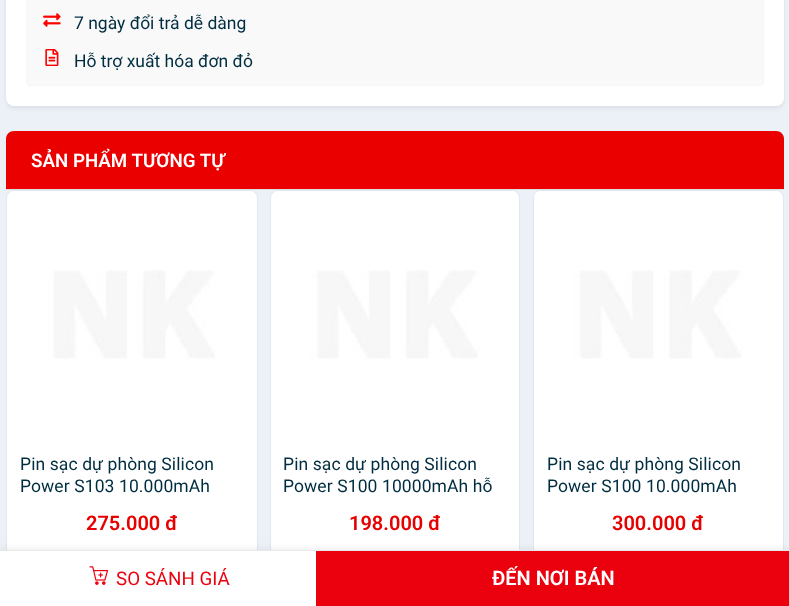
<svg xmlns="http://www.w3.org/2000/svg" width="789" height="606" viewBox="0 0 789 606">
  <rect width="100%" height="100%" fill="rgb(236,241,247)"/>
  <rect x="6" y="-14" width="778" height="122" rx="8" fill="rgba(0,0,0,0.08)" filter="blur(2px)"/>
  <rect x="6" y="-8" width="778" height="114" rx="8" fill="rgb(255,255,255)"/>
  <rect x="26.5" y="-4.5" width="737" height="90" rx="3.5" fill="rgb(249,249,249)" stroke="rgb(246,246,246)"/>
  <image x="43" y="13" width="18" height="14" href="pic1.png"/>
  <text x="74" y="29" font-family="Roboto" font-size="17.5" fill="rgb(1,45,65)">7 ngày đổi trả dễ dàng</text>
  <image x="45" y="49" width="14" height="17" href="pic2.png"/>
  <text x="74" y="67" font-family="Roboto" font-size="17.5" fill="rgb(1,45,65)">Hỗ trợ xuất hóa đơn đỏ</text>
  <rect x="6.5" y="190.5" width="251" height="368" rx="7.5" fill="rgb(255,255,255)" stroke="rgb(223,231,239)"/>
  <rect x="270.5" y="190.5" width="249" height="368" rx="7.5" fill="rgb(255,255,255)" stroke="rgb(223,231,239)"/>
  <rect x="533.5" y="190.5" width="250" height="368" rx="7.5" fill="rgb(255,255,255)" stroke="rgb(223,231,239)"/>
  <rect x="0" y="550" width="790" height="56" fill="rgba(0,0,0,0.09)" filter="blur(4px)"/>
  <rect x="0" y="551" width="316" height="55" fill="rgb(255,255,255)"/>
  <rect x="0" y="550" width="789" height="1" fill="rgb(232,232,232)"/>
  <image x="89" y="566" width="20" height="19" href="pic3.png"/>
  <text x="116" y="585" font-family="Roboto" font-size="18.75" fill="rgb(235,0,14)">SO SÁNH GIÁ</text>
  <rect x="316" y="551" width="473" height="55" fill="rgb(235,0,14)"/>
  <text x="492" y="585" font-family="Roboto" font-size="20" font-weight="600" fill="rgb(255,255,255)">ĐẾN NƠI BÁN</text>
  <path d="M14 131H776C780.5 131 784 134.5 784 139V190H6V139C6 134.5 9.5 131 14 131Z" fill="rgb(235,0,0)"/>
  <rect x="6" y="189" width="778" height="1" fill="rgb(221,221,221)"/>
  <text x="31" y="167" font-family="Roboto" font-size="18.75" font-weight="600" fill="rgb(255,255,255)">SẢN PHẨM TƯƠNG TỰ</text>
  <image x="11" y="191" width="241" height="168" href="pic4.png"/>
  <g font-family="Roboto" font-size="17.5" letter-spacing="0.1" fill="rgb(1,45,65)">
    <text>
      <tspan x="20" y="470">Pin sạc dự phòng Silicon</tspan>
      <tspan x="20" y="492">Power S103 10.000mAh</tspan>
    </text>
  </g>
  <text x="86" y="530" font-family="Roboto" font-size="20" font-weight="600" fill="rgb(230,0,0)">275.000 đ</text>
  <image x="275" y="191" width="240" height="168" href="pic5.png"/>
  <g font-family="Roboto" font-size="17.5" letter-spacing="0.1" fill="rgb(1,45,65)">
    <text>
      <tspan x="283" y="470">Pin sạc dự phòng Silicon</tspan>
      <tspan x="283" y="492">Power S100 10000mAh hỗ</tspan>
    </text>
  </g>
  <text x="349" y="530" font-family="Roboto" font-size="20" font-weight="600" fill="rgb(230,0,0)">198.000 đ</text>
  <image x="534" y="191" width="245" height="168" href="pic6.png"/>
  <image x="535" y="192" width="2" height="2" href="pic7.png"/>
  <g font-family="Roboto" font-size="17.5" letter-spacing="0.1" fill="rgb(1,45,65)">
    <text>
      <tspan x="547" y="470">Pin sạc dự phòng Silicon</tspan>
      <tspan x="547" y="492">Power S100 10.000mAh</tspan>
    </text>
  </g>
  <text x="612" y="530" font-family="Roboto" font-size="20" font-weight="600" fill="rgb(230,0,0)">300.000 đ</text>
</svg>
